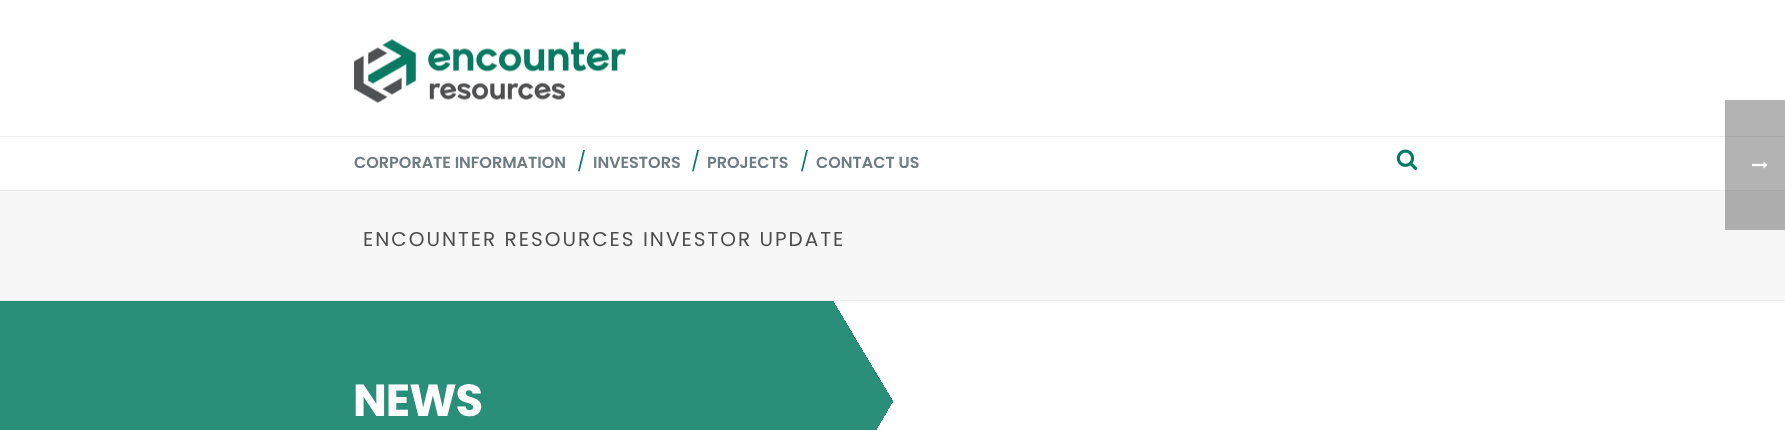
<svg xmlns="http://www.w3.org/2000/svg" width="1785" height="430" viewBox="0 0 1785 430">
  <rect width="100%" height="100%" fill="rgb(255,255,255)"/>
  <rect x="0" y="191" width="1785" height="109" fill="rgb(247,247,247)"/>
  <rect x="1725" y="191" width="60" height="39" fill="rgb(173,173,173)"/>
  <rect x="0" y="300" width="1785" height="1" fill="rgb(237,237,237)"/>
  <rect x="0" y="190" width="1725" height="1" fill="rgb(237,237,237)"/>
  <rect x="1725" y="190" width="60" height="1" fill="rgb(166,166,166)"/>
  <image x="354" y="39" width="272" height="64" href="pic1.png"/>
  <rect x="0" y="136" width="1725" height="1" fill="rgb(237,237,237)"/>
  <rect x="1725" y="100" width="60" height="90" fill="rgb(179,179,179)"/>
  <rect x="1725" y="136" width="60" height="1" fill="rgb(166,166,166)"/>
  <text x="354" y="168" font-family="Poppins" font-size="16" font-weight="600" fill="rgb(110,124,131)">CORPORATE INFORMATION</text>
  <text x="577" y="168" font-family="Poppins" font-size="19" fill="rgb(3,123,98)">/</text>
  <text x="593" y="168" font-family="Poppins" font-size="16" font-weight="600" fill="rgb(110,124,131)">INVESTORS</text>
  <text x="691" y="168" font-family="Poppins" font-size="19" fill="rgb(3,123,98)">/</text>
  <text x="707" y="168" font-family="Poppins" font-size="16" font-weight="600" fill="rgb(110,124,131)">PROJECTS</text>
  <text x="800" y="168" font-family="Poppins" font-size="19" fill="rgb(3,123,98)">/</text>
  <text x="816" y="168" font-family="Poppins" font-size="16" font-weight="600" fill="rgb(110,124,131)">CONTACT US</text>
  <image x="1396" y="149" width="22" height="21" href="pic2.png"/>
  <text x="363" y="246" font-family="Poppins" font-size="20" letter-spacing="2" fill="rgb(77,77,77)">ENCOUNTER RESOURCES INVESTOR UPDATE</text>
  <image x="0" y="301" width="893" height="129" href="pic3.png"/>
  <text x="353" y="416" font-family="Poppins" font-size="45" font-weight="bold" letter-spacing="-1" fill="rgb(255,255,255)">NEWS</text>
  <image x="1752" y="161" width="16" height="8" href="pic4.png"/>
</svg>
